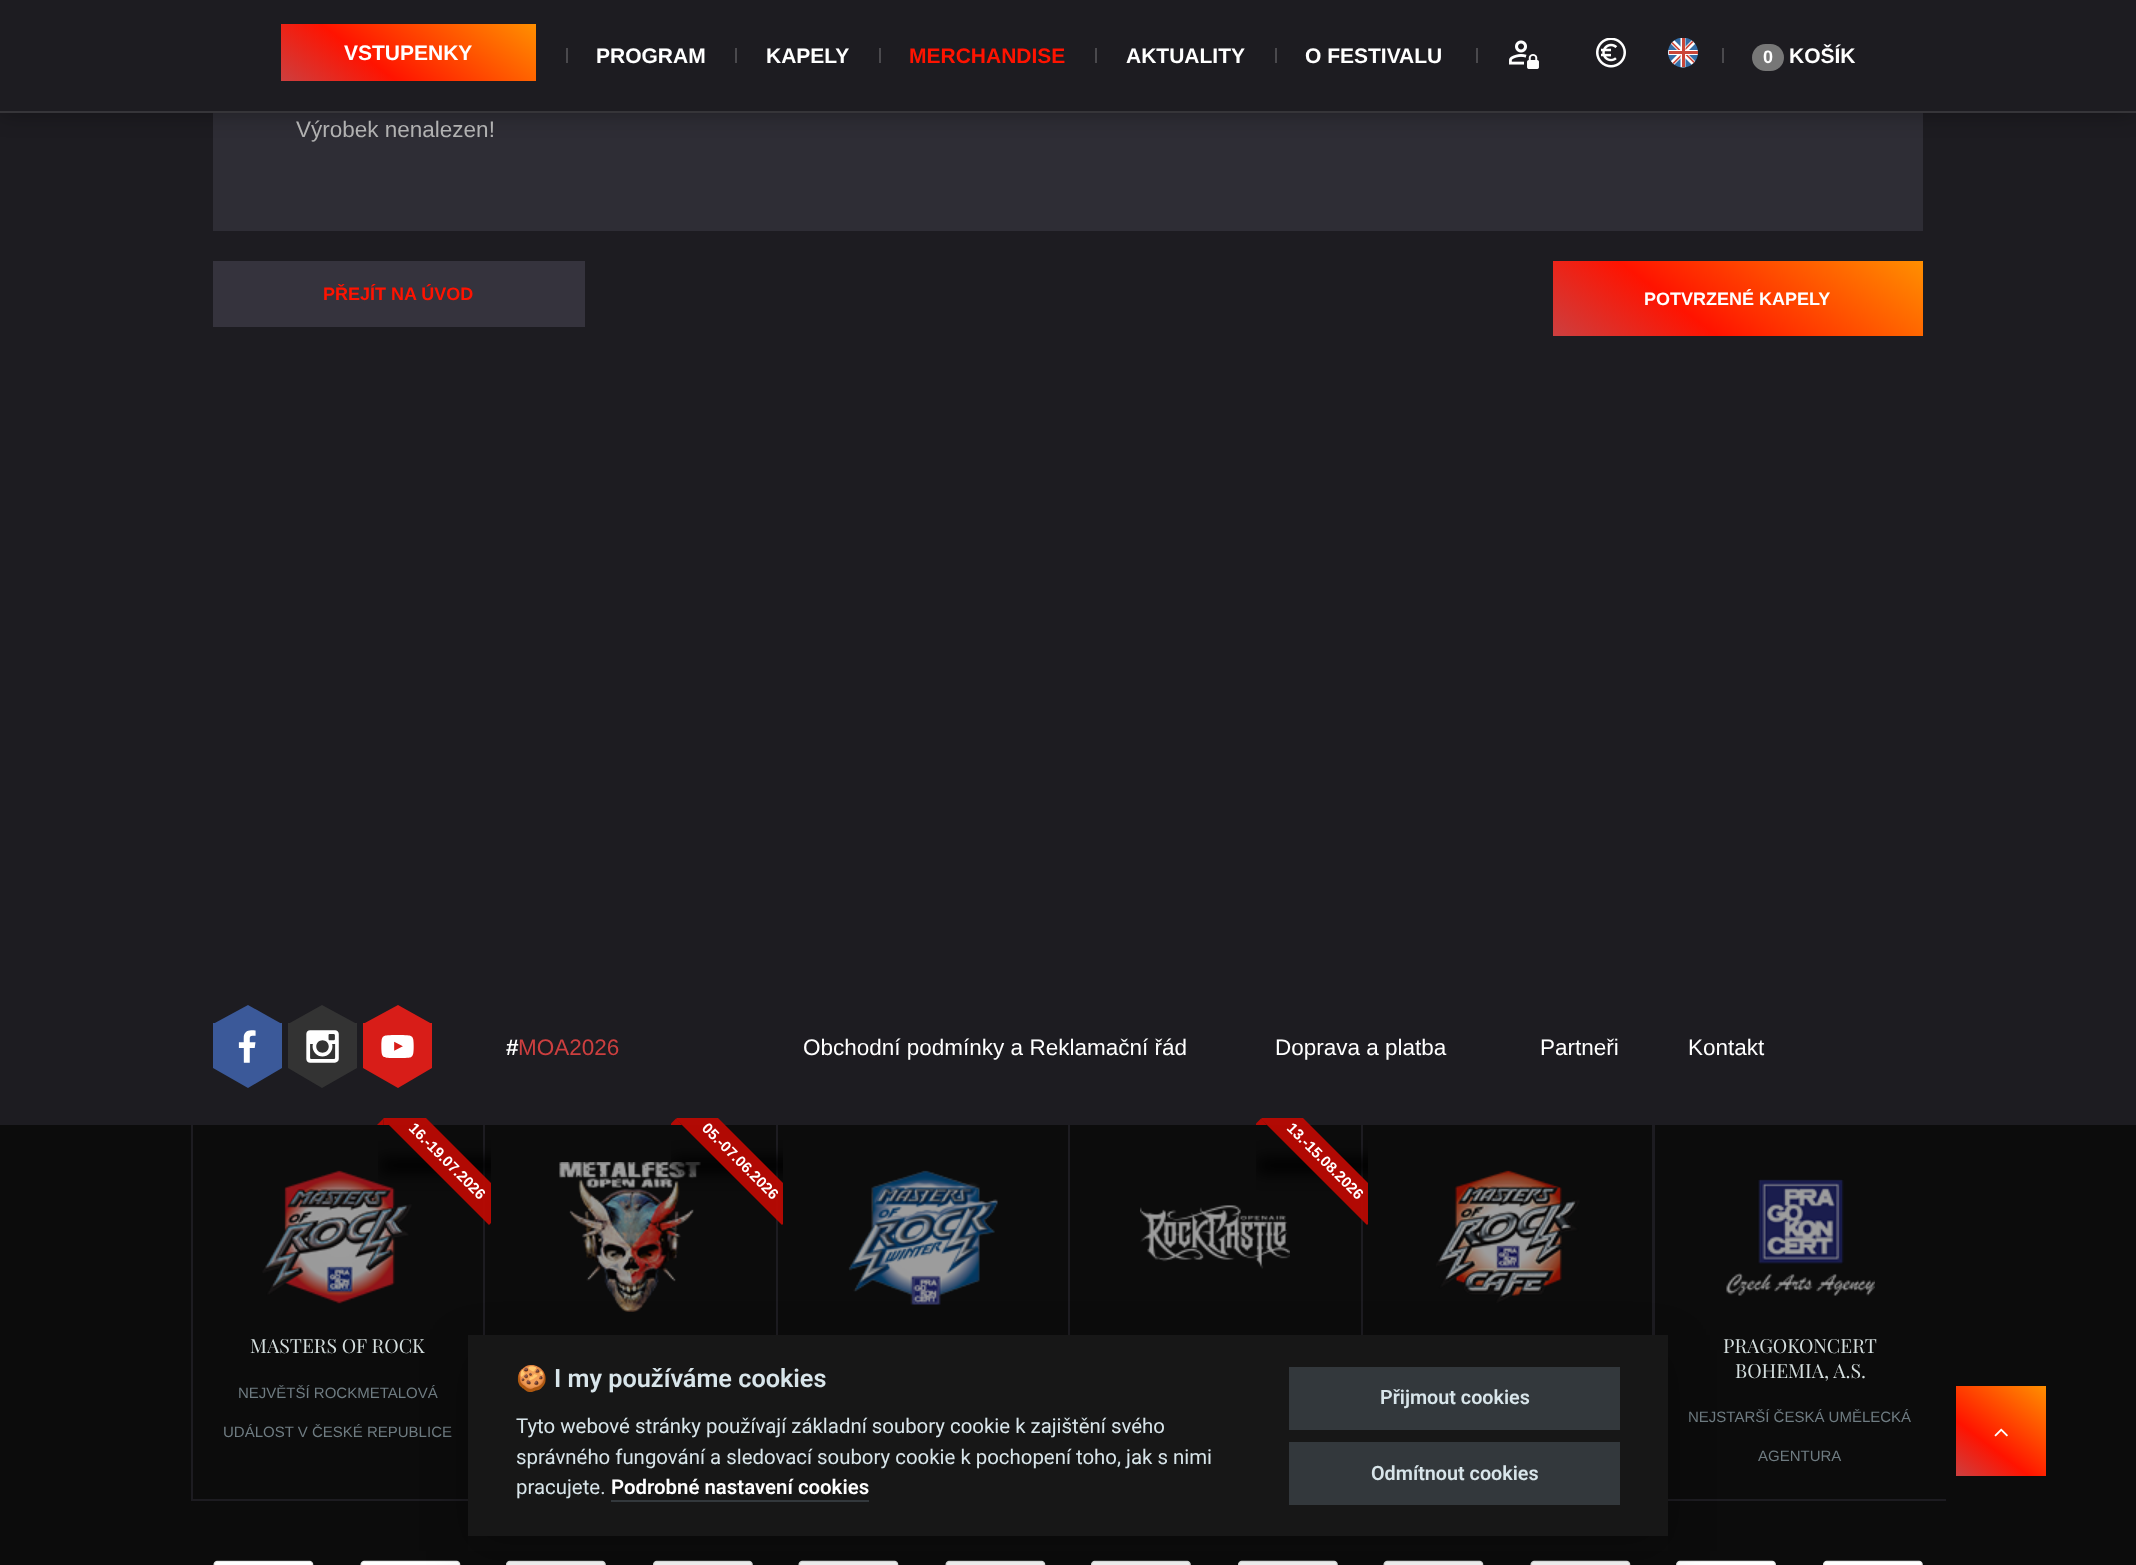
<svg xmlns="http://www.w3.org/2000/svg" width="2136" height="1565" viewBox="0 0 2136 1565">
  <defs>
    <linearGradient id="g1" gradientUnits="userSpaceOnUse" x1="348" y1="132" x2="468" y2="-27"><stop offset="0" stop-color="rgb(204,63,63)"/><stop offset="0.35" stop-color="rgb(255,19,0)"/><stop offset="1" stop-color="rgb(255,143,0)"/></linearGradient>
    <linearGradient id="g2" gradientUnits="userSpaceOnUse" x1="1653" y1="411" x2="1823" y2="186"><stop offset="0" stop-color="rgb(204,63,63)"/><stop offset="0.35" stop-color="rgb(255,19,0)"/><stop offset="1" stop-color="rgb(255,143,0)"/></linearGradient>
    <clipPath id="clip1"><rect x="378" y="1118" width="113" height="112"/></clipPath>
    <clipPath id="clip2"><path d="M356 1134H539V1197H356ZM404.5 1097.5L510.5 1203.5L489.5 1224.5L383.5 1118.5Z" clip-rule="evenodd"/></clipPath>
    <clipPath id="clip3"><rect x="378" y="1118" width="113" height="112"/></clipPath>
    <clipPath id="clip4"><rect x="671" y="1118" width="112" height="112"/></clipPath>
    <clipPath id="clip5"><path d="M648 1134H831V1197H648ZM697 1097.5L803 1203.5L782 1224.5L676 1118.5Z" clip-rule="evenodd"/></clipPath>
    <clipPath id="clip6"><rect x="671" y="1118" width="112" height="112"/></clipPath>
    <clipPath id="clip7"><rect x="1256" y="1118" width="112" height="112"/></clipPath>
    <clipPath id="clip8"><path d="M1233 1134H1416V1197H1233ZM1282 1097.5L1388 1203.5L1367 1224.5L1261 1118.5Z" clip-rule="evenodd"/></clipPath>
    <clipPath id="clip9"><rect x="1256" y="1118" width="112" height="112"/></clipPath>
    <linearGradient id="g3" gradientUnits="userSpaceOnUse" x1="1963" y1="1481" x2="2039" y2="1381"><stop offset="0" stop-color="rgb(204,63,63)"/><stop offset="0.35" stop-color="rgb(255,19,0)"/><stop offset="1" stop-color="rgb(255,143,0)"/></linearGradient>
  </defs>
  <rect width="100%" height="100%" fill="rgb(29,28,33)"/>
  <rect x="213" y="113" width="1710" height="118" fill="rgb(46,45,53)"/>
  <rect x="0" y="2" width="2136" height="112" fill="rgba(0,0,0,0.3)" filter="blur(11px)"/>
  <rect x="0" y="0" width="2136" height="111" fill="rgb(29,28,33)"/>
  <rect x="0" y="111" width="2136" height="2" fill="rgb(54,53,57)"/>
  <rect x="281" y="24" width="255" height="57" fill="url(#g1)"/>
  <text x="344" y="60" font-family="Liberation Sans" font-size="21" font-weight="bold" fill="rgb(255,255,255)">VSTUPENKY</text>
  <rect x="566" y="48" width="2" height="15" fill="rgb(74,73,77)"/>
  <text x="596" y="63" font-family="Liberation Sans" font-size="21" font-weight="bold" fill="rgb(255,255,255)">PROGRAM</text>
  <rect x="735" y="48" width="2" height="15" fill="rgb(74,73,77)"/>
  <text x="766" y="63" font-family="Liberation Sans" font-size="21" font-weight="bold" fill="rgb(255,255,255)">KAPELY</text>
  <rect x="879" y="48" width="2" height="15" fill="rgb(74,73,77)"/>
  <text x="909" y="63" font-family="Liberation Sans" font-size="21" font-weight="bold" fill="rgb(255,19,0)">MERCHANDISE</text>
  <rect x="1095" y="48" width="2" height="15" fill="rgb(74,73,77)"/>
  <text x="1126" y="63" font-family="Liberation Sans" font-size="21" font-weight="bold" fill="rgb(255,255,255)">AKTUALITY</text>
  <rect x="1275" y="48" width="2" height="15" fill="rgb(74,73,77)"/>
  <text x="1305" y="63" font-family="Liberation Sans" font-size="21" font-weight="bold" fill="rgb(255,255,255)">O FESTIVALU</text>
  <rect x="1476" y="48" width="2" height="15" fill="rgb(74,73,77)"/>
  <image x="1509" y="40" width="30" height="29" href="pic1.png"/>
  <image x="1596" y="38" width="30" height="30" href="pic2.png"/>
  <image x="1668" y="38" width="30" height="30" href="pic3.png"/>
  <rect x="1722" y="48" width="2" height="15" fill="rgb(74,73,77)"/>
  <rect x="1752" y="44" width="32" height="27" rx="13.5" fill="rgb(119,119,119)"/>
  <text x="1763" y="63" font-family="Liberation Sans" font-size="18" font-weight="bold" fill="rgb(255,255,255)">0</text>
  <text x="1789" y="63" font-family="Liberation Sans" font-size="21" font-weight="bold" fill="rgb(255,255,255)">KOŠÍK</text>
  <text x="296" y="137" font-family="Liberation Sans" font-size="22.5" fill="rgb(177,177,177)">Výrobek nenalezen!</text>
  <rect x="213" y="261" width="372" height="66" fill="rgb(53,51,61)"/>
  <text x="323" y="300" font-family="Liberation Sans" font-size="18" font-weight="bold" fill="rgb(255,19,0)">PŘEJÍT NA ÚVOD</text>
  <rect x="1553" y="261" width="370" height="75" fill="url(#g2)"/>
  <text x="1644" y="305" font-family="Liberation Sans" font-size="18" font-weight="bold" fill="rgb(255,255,255)">POTVRZENÉ KAPELY</text>
  <rect x="213" y="1023" width="69" height="45" fill="rgb(59,89,153)"/>
  <path d="M282 1024H213L248 1005Z" fill="rgb(59,89,153)"/>
  <image x="238" y="1030" width="18" height="33" href="pic4.png"/>
  <path d="M213 1068H282L248 1088Z" fill="rgb(59,89,153)"/>
  <rect x="288" y="1023" width="69" height="45" fill="rgb(51,51,51)"/>
  <path d="M357 1024H288L322 1005Z" fill="rgb(51,51,51)"/>
  <image x="306" y="1030" width="33" height="33" href="pic5.png"/>
  <path d="M288 1068H357L322 1088Z" fill="rgb(51,51,51)"/>
  <rect x="363" y="1023" width="69" height="45" fill="rgb(216,29,24)"/>
  <path d="M432 1024H363L398 1005Z" fill="rgb(216,29,24)"/>
  <image x="381" y="1035" width="33" height="23" href="pic6.png"/>
  <path d="M363 1068H432L398 1088Z" fill="rgb(216,29,24)"/>
  <text x="506" y="1055" font-family="Liberation Sans" font-size="22.5" font-weight="bold" fill="rgb(255,255,255)">#</text>
  <text x="518" y="1055" font-family="Liberation Sans" font-size="22.5" fill="rgb(204,63,63)">MOA2026</text>
  <g font-family="Liberation Sans" font-size="22.5" fill="rgb(255,255,255)">
    <text x="803" y="1055">Obchodní podmínky a Reklamační řád</text>
    <text x="1275" y="1055">Doprava a platba</text>
    <text x="1540" y="1055">Partneři</text>
    <text x="1688" y="1055">Kontakt</text>
  </g>
  <rect x="0" y="1125" width="2136" height="440" fill="rgb(12,12,12)"/>
  <rect x="191" y="1499" width="277" height="2" fill="rgb(29,28,33)"/>
  <rect x="191" y="1125" width="2" height="375" fill="rgb(29,28,33)"/>
  <image x="262" y="1170" width="150" height="134" href="pic7.png"/>
  <rect x="483" y="1125" width="2" height="210" fill="rgb(29,28,33)"/>
  <g clip-path="url(#clip1)">
    <g clip-path="url(#clip2)">
      <rect x="380" y="1158" width="135" height="15" fill="rgb(0,0,0)" filter="blur(7.5px)"/>
    </g>
  </g>
  <g clip-path="url(#clip3)">
    <path d="M405 1097L511 1203L489 1225L383 1119Z" fill="rgba(186,9,3,0.95)"/>
  </g>
  <path d="M383.5 1118.5L389.5 1125H383.5Z" fill="rgba(186,9,3,0.95)"/>
  <path d="M377 1125L383.5 1118.5V1125Z" fill="rgba(186,9,3,0.95)"/>
  <text x="408" y="1129" transform="rotate(45 408 1129)" font-family="Liberation Sans" font-size="15" font-weight="bold" fill="rgb(255,255,255)">16.-19.07.2026</text>
  <text x="250" y="1353" font-family="Playfair Display" font-size="19.5" fill="rgb(212,222,222)">MASTERS OF ROCK</text>
  <g font-family="Liberation Sans" font-size="15" fill="rgb(111,124,130)">
    <text x="238" y="1398">NEJVĚTŠÍ ROCKMETALOVÁ</text>
    <text x="223" y="1437">UDÁLOST V ČESKÉ REPUBLICE</text>
  </g>
  <image x="559" y="1162" width="142" height="150" href="pic8.png"/>
  <rect x="776" y="1125" width="2" height="210" fill="rgb(29,28,33)"/>
  <g clip-path="url(#clip4)">
    <g clip-path="url(#clip5)">
      <rect x="672" y="1158" width="135" height="15" fill="rgb(0,0,0)" filter="blur(7.5px)"/>
    </g>
  </g>
  <g clip-path="url(#clip6)">
    <path d="M697 1097L803 1203L782 1225L676 1119Z" fill="rgba(186,9,3,0.95)"/>
  </g>
  <path d="M676 1118.5L682 1125H676Z" fill="rgba(186,9,3,0.95)"/>
  <g clip-path="url(#clip6)">
    <path d="M669.5 1125L676 1118.5V1125Z" fill="rgb(178,10,5)"/>
  </g>
  <text x="701" y="1129" transform="rotate(45 701 1129)" font-family="Liberation Sans" font-size="15" font-weight="bold" fill="rgb(255,255,255)">05.-07.06.2026</text>
  <image x="848" y="1170" width="150" height="135" href="pic9.png"/>
  <rect x="1068" y="1125" width="2" height="210" fill="rgb(29,28,33)"/>
  <rect x="1361" y="1125" width="2" height="210" fill="rgb(29,28,33)"/>
  <g clip-path="url(#clip7)">
    <g clip-path="url(#clip8)">
      <rect x="1257" y="1158" width="135" height="15" fill="rgb(0,0,0)" filter="blur(7.5px)"/>
    </g>
  </g>
  <image x="1140" y="1205" width="150" height="64" href="pic10.png"/>
  <g clip-path="url(#clip9)">
    <path d="M1282 1097L1388 1203L1367 1225L1261 1119Z" fill="rgba(186,9,3,0.95)"/>
  </g>
  <path d="M1261 1118.5L1267 1125H1261Z" fill="rgba(186,9,3,0.95)"/>
  <g clip-path="url(#clip9)">
    <path d="M1254.5 1125L1261 1118.5V1125Z" fill="rgb(178,10,5)"/>
  </g>
  <text x="1286" y="1129" transform="rotate(45 1286 1129)" font-family="Liberation Sans" font-size="15" font-weight="bold" fill="rgb(255,255,255)">13.-15.08.2026</text>
  <rect x="1652" y="1125" width="3" height="210" fill="rgb(29,28,33)"/>
  <image x="1436" y="1170" width="144" height="133" href="pic11.png"/>
  <rect x="1668" y="1499" width="278" height="2" fill="rgb(29,28,33)"/>
  <image x="1726" y="1179" width="149" height="117" href="pic12.png"/>
  <g font-family="Playfair Display" font-size="19.5" fill="rgb(212,222,222)">
    <text x="1723" y="1353">PRAGOKONCERT</text>
    <text x="1735" y="1378">BOHEMIA, A.S.</text>
  </g>
  <g font-family="Liberation Sans" font-size="15" fill="rgb(111,124,130)">
    <text x="1688" y="1422">NEJSTARŠÍ ČESKÁ UMĚLECKÁ</text>
    <text x="1758" y="1461">AGENTURA</text>
  </g>
  <image x="213" y="1560" width="101" height="5" href="pic13.png"/>
  <image x="360" y="1560" width="101" height="5" href="pic14.png"/>
  <image x="506" y="1560" width="100" height="5" href="pic15.png"/>
  <image x="653" y="1560" width="100" height="5" href="pic15.png"/>
  <image x="798" y="1560" width="101" height="5" href="pic14.png"/>
  <image x="945" y="1560" width="101" height="5" href="pic13.png"/>
  <image x="1091" y="1560" width="100" height="5" href="pic15.png"/>
  <image x="1238" y="1560" width="100" height="5" href="pic16.png"/>
  <image x="1383" y="1560" width="101" height="5" href="pic14.png"/>
  <image x="1530" y="1560" width="101" height="5" href="pic14.png"/>
  <image x="1676" y="1560" width="100" height="5" href="pic17.png"/>
  <image x="1823" y="1560" width="100" height="5" href="pic16.png"/>
  <rect x="468" y="1350" width="1200" height="201" fill="rgba(2,2,3,0.28)" filter="blur(22.5px)"/>
  <rect x="468" y="1335" width="1200" height="201" fill="rgb(23,23,23)"/>
  <text x="516" y="1387" font-family="Noto Color Emoji" font-size="25.25" font-weight="bold" fill="rgb(216,229,234)">🍪</text>
  <text x="554" y="1387" font-family="Roboto" font-size="25.25" font-weight="600" fill="rgb(216,229,234)">I my používáme cookies</text>
  <g font-family="Roboto" font-size="20.4" fill="rgb(216,229,234)">
    <text>
      <tspan x="516" y="1433">Tyto webové stránky používají základní soubory cookie k zajištění svého</tspan>
      <tspan x="516" y="1464">správného fungování a sledovací soubory cookie k pochopení toho, jak s nimi</tspan>
      <tspan x="516" y="1494">pracujete.</tspan>
    </text>
  </g>
  <text x="611" y="1494" font-family="Roboto" font-size="20.4" font-weight="600" fill="rgb(255,255,255)">Podrobné nastavení cookies</text>
  <rect x="611" y="1500" width="258" height="2" fill="rgb(51,56,60)"/>
  <rect x="1289" y="1367" width="331" height="63" fill="rgb(51,56,60)"/>
  <text x="1380" y="1404" font-family="Roboto" font-size="19.75" font-weight="600" fill="rgb(216,229,234)">Přijmout cookies</text>
  <rect x="1289" y="1442" width="331" height="63" fill="rgb(51,56,60)"/>
  <text x="1371" y="1480" font-family="Roboto" font-size="19.75" font-weight="600" fill="rgb(216,229,234)">Odmítnout cookies</text>
  <rect x="1956" y="1386" width="90" height="90" fill="url(#g3)"/>
  <image x="1994" y="1428" width="14" height="9" href="pic18.png"/>
</svg>
